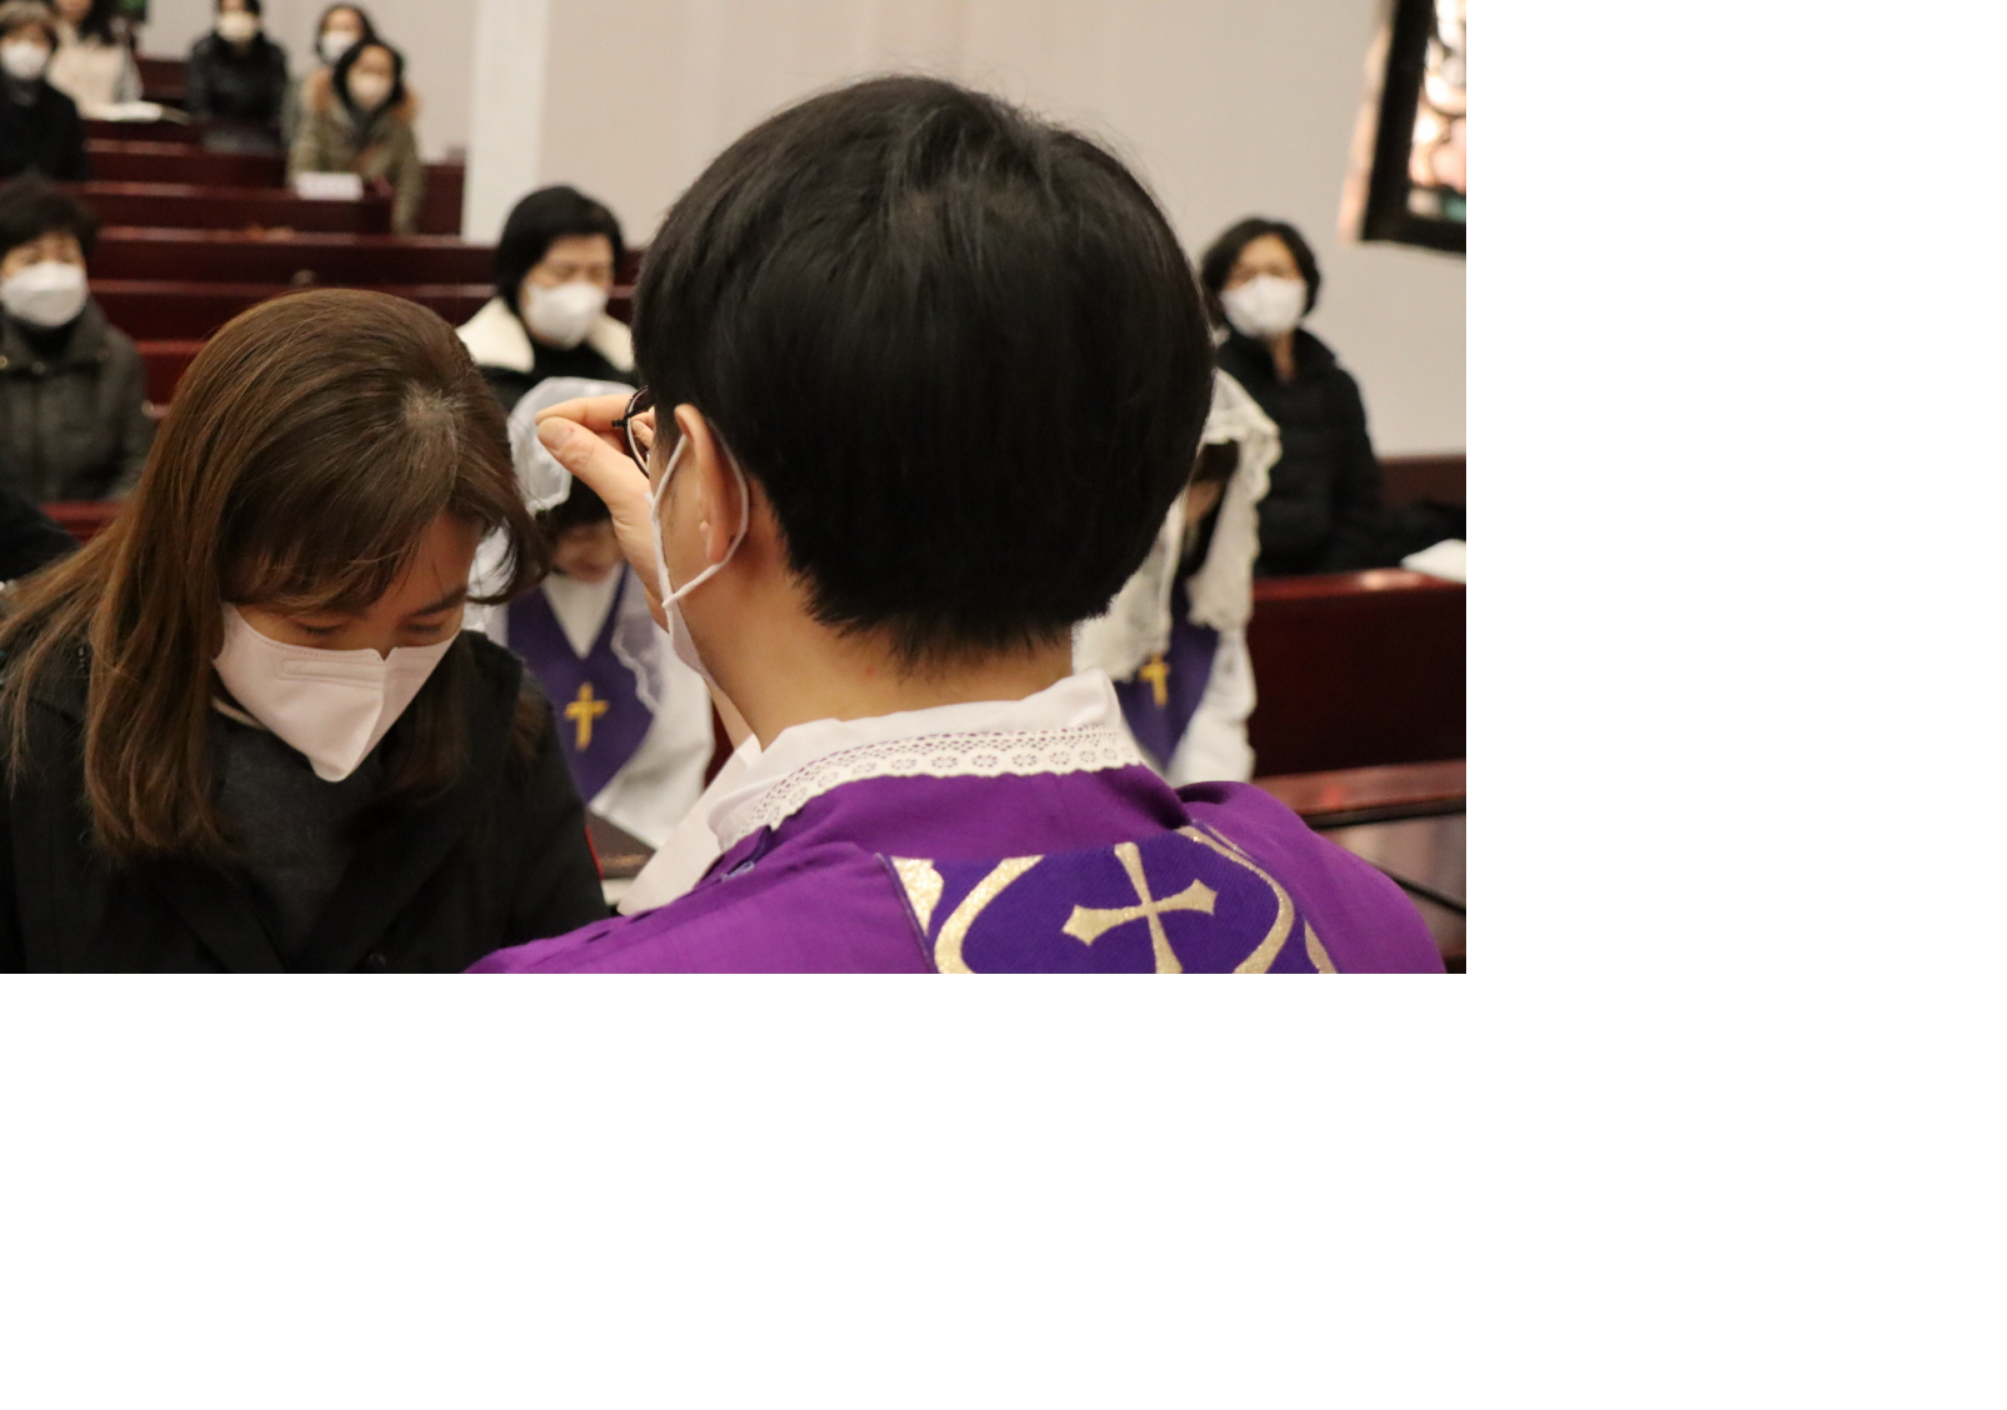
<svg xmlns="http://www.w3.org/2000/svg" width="2007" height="1410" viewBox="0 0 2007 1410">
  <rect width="100%" height="100%" fill="rgb(255,255,255)"/>
  <image x="0" y="0" width="1467" height="974" href="pic1.png"/>
</svg>
